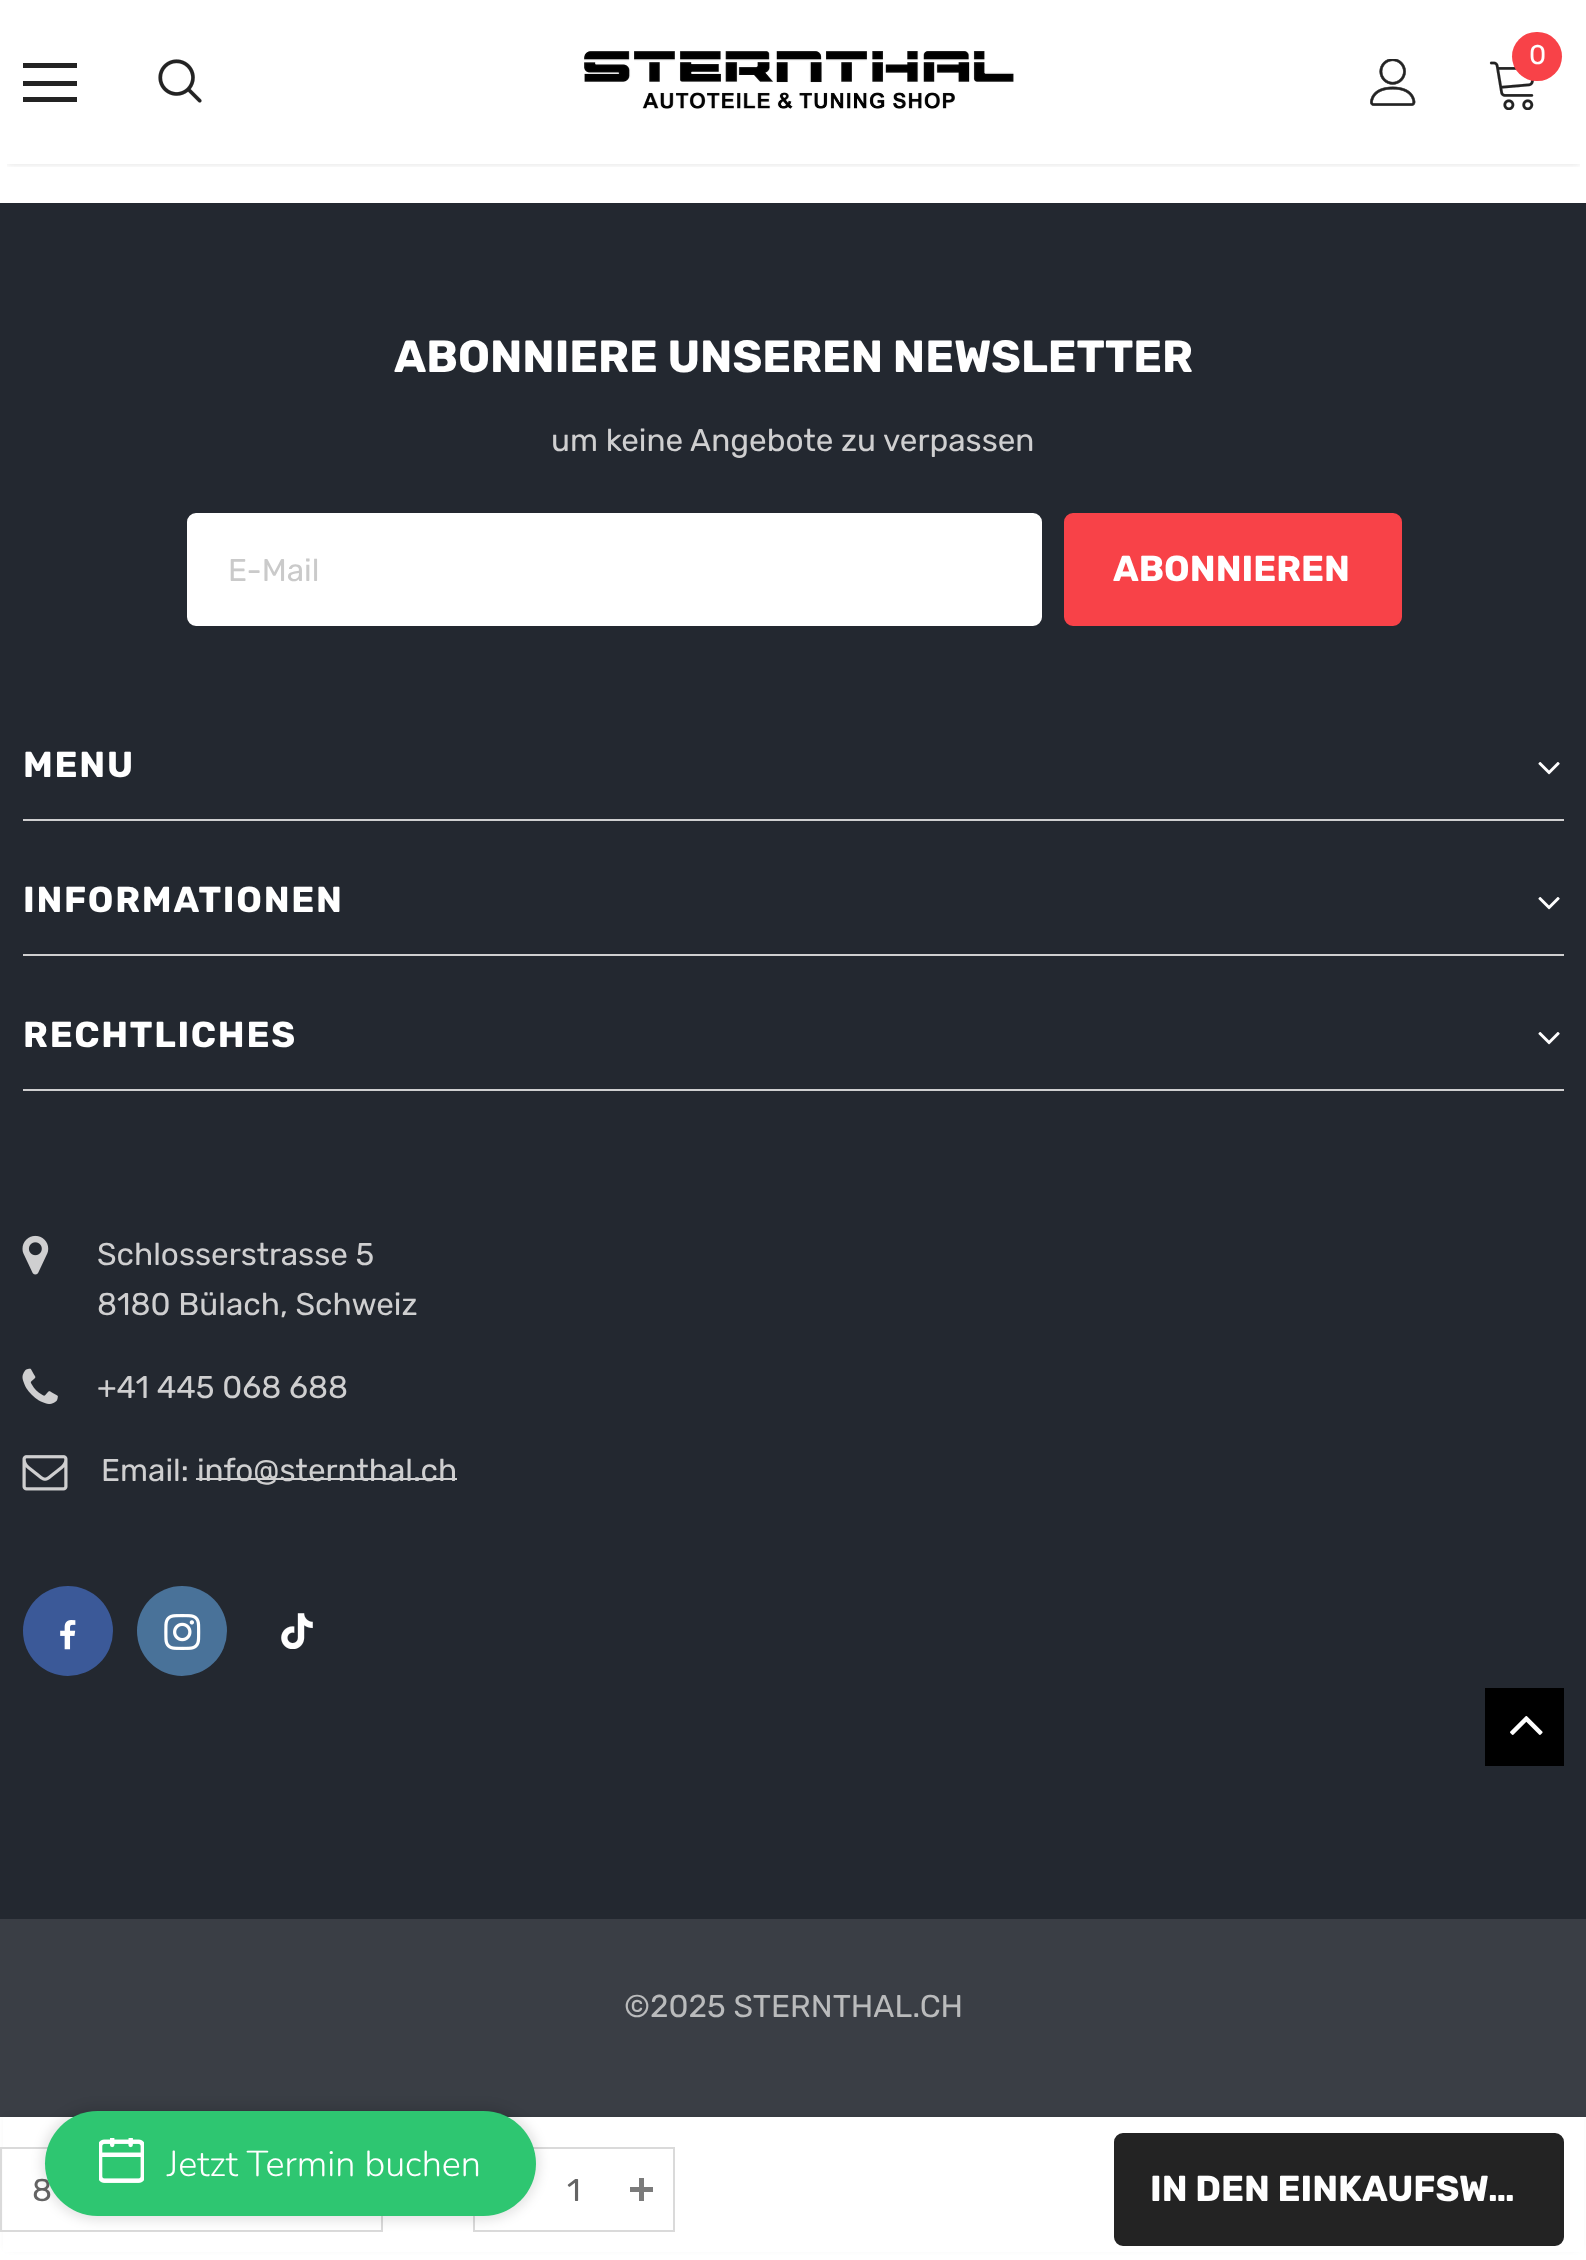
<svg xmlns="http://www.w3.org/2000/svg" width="1586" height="2260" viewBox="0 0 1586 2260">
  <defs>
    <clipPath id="clip1"><rect x="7" y="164" width="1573" height="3"/></clipPath>
  </defs>
  <rect width="100%" height="100%" fill="rgb(255,255,255)"/>
  <g clip-path="url(#clip1)">
    <rect x="7" y="14" width="1573" height="150" fill="rgba(0,0,0,0.12)" filter="blur(3.5px)"/>
  </g>
  <rect x="23" y="63" width="54" height="5" fill="rgb(35,35,35)"/>
  <rect x="23" y="81" width="54" height="5" fill="rgb(35,35,35)"/>
  <rect x="23" y="97" width="54" height="5" fill="rgb(35,35,35)"/>
  <image x="158" y="59" width="44" height="44" href="pic1.png"/>
  <image x="584" y="51" width="430" height="58" href="pic2.png"/>
  <image x="1489" y="61" width="45" height="49" href="pic3.png"/>
  <rect x="1512" y="32" width="50" height="49" rx="24.5" fill="rgb(248,66,72)"/>
  <text x="1529" y="64" font-family="Rubik" font-size="27" fill="rgb(255,255,255)">0</text>
  <image x="1370" y="59" width="46" height="47" href="pic4.png"/>
  <rect x="0" y="203" width="1586" height="1716" fill="rgb(35,40,48)"/>
  <text x="394" y="372" font-family="Rubik" font-size="45" font-weight="bold" fill="rgb(255,255,255)">ABONNIERE UNSEREN NEWSLETTER</text>
  <text x="551" y="451" font-family="Rubik" font-size="31.5" fill="rgb(207,207,208)">um keine Angebote zu verpassen</text>
  <rect x="188" y="514" width="853" height="111" rx="8" fill="rgb(255,255,255)" stroke="rgb(255,255,255)" stroke-width="2"/>
  <text x="228" y="581" font-family="Rubik" font-size="31.5" fill="rgb(202,202,202)">E-Mail</text>
  <rect x="1065" y="514" width="336" height="111" rx="8" fill="rgb(248,66,72)" stroke="rgb(248,66,72)" stroke-width="2"/>
  <text x="1113" y="581" font-family="Rubik" font-size="36" font-weight="bold" fill="rgb(255,255,255)">ABONNIEREN</text>
  <rect x="23" y="819" width="1541" height="2" fill="rgb(207,207,208)"/>
  <text x="23" y="777" font-family="Rubik" font-size="36" font-weight="bold" letter-spacing="1.75" fill="rgb(255,255,255)">MENU</text>
  <image x="1538" y="762" width="22" height="13" href="pic5.png"/>
  <rect x="23" y="954" width="1541" height="2" fill="rgb(207,207,208)"/>
  <text x="23" y="912" font-family="Rubik" font-size="36" font-weight="bold" letter-spacing="1.75" fill="rgb(255,255,255)">INFORMATIONEN</text>
  <image x="1538" y="897" width="22" height="13" href="pic5.png"/>
  <rect x="23" y="1089" width="1541" height="2" fill="rgb(207,207,208)"/>
  <text x="23" y="1047" font-family="Rubik" font-size="36" font-weight="bold" letter-spacing="1.75" fill="rgb(255,255,255)">RECHTLICHES</text>
  <image x="1538" y="1032" width="22" height="13" href="pic5.png"/>
  <image x="22" y="1235" width="27" height="40" href="pic6.png"/>
  <g font-family="Rubik" font-size="31.5" fill="rgb(207,207,208)">
    <text>
      <tspan x="97" y="1265">Schlosserstrasse 5</tspan>
      <tspan x="97" y="1315">8180 Bülach, Schweiz</tspan>
    </text>
  </g>
  <image x="22" y="1368" width="36" height="36" href="pic7.png"/>
  <text x="97" y="1398" font-family="Rubik" font-size="31.5" fill="rgb(207,207,208)">+41 445 068 688</text>
  <image x="22" y="1455" width="46" height="36" href="pic8.png"/>
  <text x="101" y="1481" font-family="Rubik" font-size="31.5" fill="rgb(207,207,208)">Email:</text>
  <rect x="196" y="1478" width="261" height="2" fill="rgb(207,207,208)"/>
  <text x="197" y="1481" font-family="Rubik" font-size="31.5" fill="rgb(207,207,208)">info@sternthal.ch</text>
  <circle cx="68" cy="1631" r="45" fill="rgb(59,89,152)"/>
  <image x="60" y="1620" width="16" height="30" href="pic9.png"/>
  <circle cx="182" cy="1631" r="45" fill="rgb(73,114,153)"/>
  <image x="164" y="1614" width="37" height="36" href="pic10.png"/>
  <image x="281" y="1613" width="32" height="36" href="pic11.png"/>
  <rect x="0" y="1919" width="1586" height="198" fill="rgb(58,62,69)"/>
  <text x="624" y="2017" font-family="Rubik" font-size="31.5" fill="rgb(186,187,188)">©2025 STERNTHAL.CH</text>
  <rect x="1485" y="1688" width="79" height="78" fill="rgb(0,0,0)"/>
  <image x="1510" y="1716" width="33" height="19" href="pic12.png"/>
  <rect x="7" y="2117" width="1573" height="131" fill="rgba(0,0,0,0.1)" filter="blur(3.5px)"/>
  <rect x="3" y="2117" width="1581" height="135" fill="rgb(255,255,255)"/>
  <rect x="1" y="2148" width="381" height="83" fill="none" stroke="rgb(218,218,218)" stroke-width="2"/>
  <text x="32" y="2201" font-family="Rubik" font-size="31.5" fill="rgb(100,100,100)">8</text>
  <rect x="474" y="2148" width="200" height="83" fill="none" stroke="rgb(218,218,218)" stroke-width="2"/>
  <text x="567" y="2201" font-family="Rubik" font-size="31.5" fill="rgb(100,100,100)">1</text>
  <rect x="630" y="2187" width="23" height="5" fill="rgb(123,123,123)"/>
  <rect x="639" y="2178" width="5" height="23" fill="rgb(123,123,123)"/>
  <rect x="1115" y="2134" width="448" height="111" rx="8" fill="rgb(35,35,35)" stroke="rgb(35,35,35)" stroke-width="2"/>
  <text x="1150" y="2201" font-family="Rubik" font-size="36" font-weight="bold" fill="rgb(255,255,255)">IN DEN EINKAUFSW…</text>
  <rect x="41" y="2106" width="499" height="115" rx="57.5" fill="rgba(0,0,0,0.1)" filter="blur(5.5px)"/>
  <rect x="45" y="2111" width="491" height="105" rx="52.5" fill="rgb(46,198,113)"/>
  <image x="99" y="2138" width="45" height="45" href="pic13.png"/>
  <text x="167" y="2176" font-family="Nunito" font-size="36" font-weight="300" fill="rgb(255,255,255)">Jetzt Termin buchen</text>
</svg>
